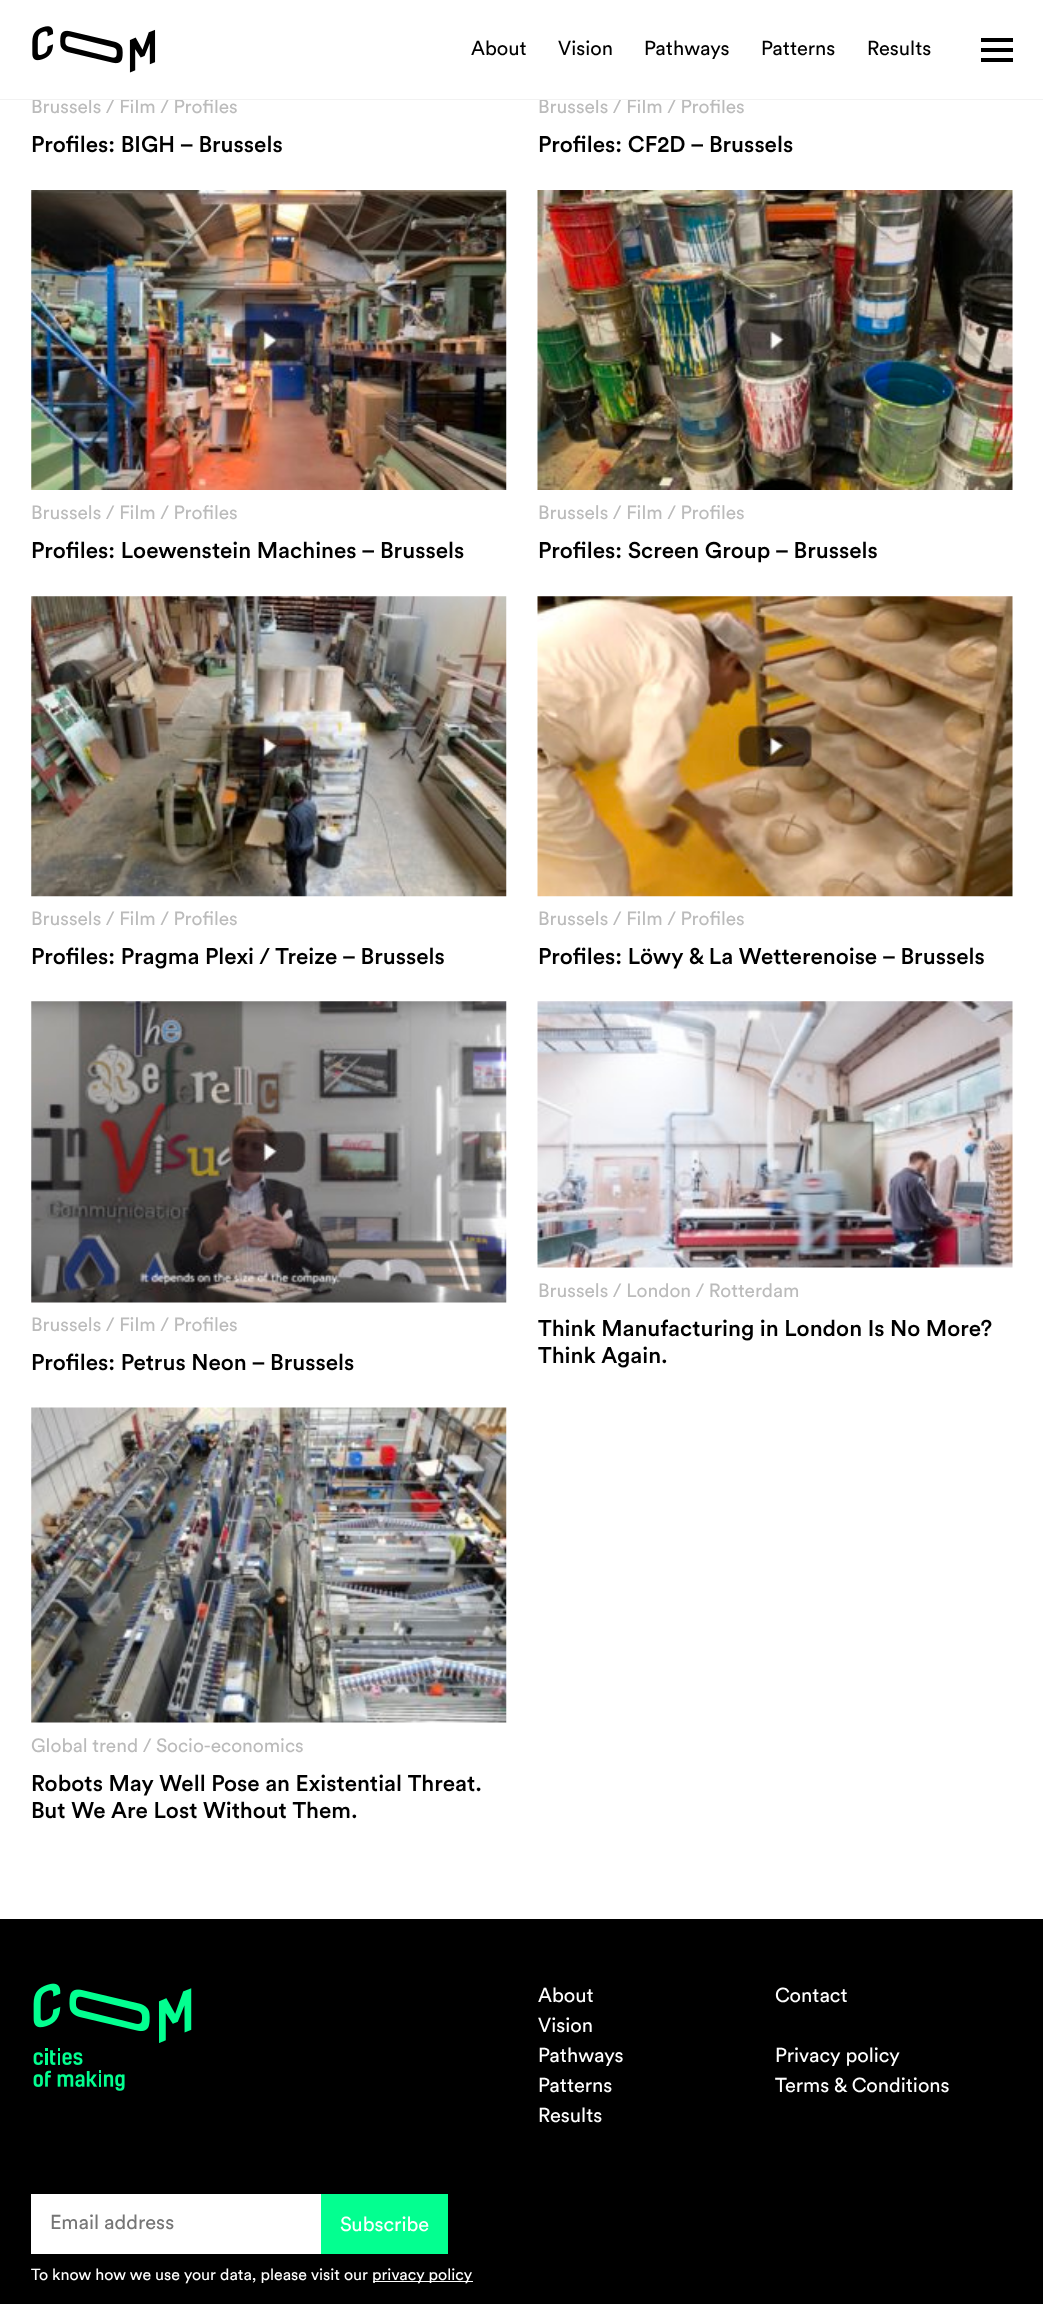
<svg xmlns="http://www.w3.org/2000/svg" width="1043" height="2304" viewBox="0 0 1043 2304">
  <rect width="100%" height="100%" fill="rgb(255,255,255)"/>
  <g font-family="Circular" font-size="19.1" fill="rgb(187,187,187)">
    <text x="31" y="113">Brussels / Film / Profiles</text>
    <text x="538" y="113">Brussels / Film / Profiles</text>
  </g>
  <rect x="0" y="99" width="1043" height="1" fill="rgb(242,242,242)"/>
  <image x="32" y="26" width="124" height="47" href="pic1.png"/>
  <rect x="981" y="48" width="32" height="4" fill="rgb(0,0,0)"/>
  <rect x="981" y="38" width="32" height="4" fill="rgb(0,0,0)"/>
  <rect x="981" y="58" width="32" height="4" fill="rgb(0,0,0)"/>
  <g font-family="Circular" font-size="20" fill="rgb(0,0,0)">
    <text x="471" y="55">About</text>
    <text x="558" y="55">Vision</text>
    <text x="644" y="55">Pathways</text>
    <text x="761" y="55">Patterns</text>
    <text x="867" y="55">Results</text>
  </g>
  <g font-family="Circular" font-size="22.5" font-weight="500" fill="rgb(0,0,0)">
    <text x="31" y="152">Profiles: BIGH – Brussels</text>
    <text x="538" y="152">Profiles: CF2D – Brussels</text>
  </g>
  <image x="31" y="190" width="476" height="300" href="pic2.png"/>
  <text x="31" y="519" font-family="Circular" font-size="19.1" fill="rgb(187,187,187)">Brussels / Film / Profiles</text>
  <text x="31" y="558" font-family="Circular" font-size="22.5" font-weight="500" fill="rgb(0,0,0)">Profiles: Loewenstein Machines – Brussels</text>
  <image x="537" y="190" width="476" height="300" href="pic3.png"/>
  <text x="538" y="519" font-family="Circular" font-size="19.1" fill="rgb(187,187,187)">Brussels / Film / Profiles</text>
  <text x="538" y="558" font-family="Circular" font-size="22.5" font-weight="500" fill="rgb(0,0,0)">Profiles: Screen Group – Brussels</text>
  <image x="31" y="596" width="476" height="301" href="pic4.png"/>
  <text x="31" y="925" font-family="Circular" font-size="19.1" fill="rgb(187,187,187)">Brussels / Film / Profiles</text>
  <text x="31" y="964" font-family="Circular" font-size="22.5" font-weight="500" fill="rgb(0,0,0)">Profiles: Pragma Plexi / Treize – Brussels</text>
  <image x="537" y="596" width="476" height="301" href="pic5.png"/>
  <text x="538" y="925" font-family="Circular" font-size="19.1" fill="rgb(187,187,187)">Brussels / Film / Profiles</text>
  <text x="538" y="964" font-family="Circular" font-size="22.5" font-weight="500" fill="rgb(0,0,0)">Profiles: Löwy &amp; La Wetterenoise – Brussels</text>
  <image x="31" y="1001" width="476" height="302" href="pic6.png"/>
  <text x="31" y="1331" font-family="Circular" font-size="19.1" fill="rgb(187,187,187)">Brussels / Film / Profiles</text>
  <text x="31" y="1370" font-family="Circular" font-size="22.5" font-weight="500" fill="rgb(0,0,0)">Profiles: Petrus Neon – Brussels</text>
  <image x="537" y="1001" width="476" height="267" href="pic7.png"/>
  <text x="538" y="1297" font-family="Circular" font-size="19.1" fill="rgb(187,187,187)">Brussels / London / Rotterdam</text>
  <g font-family="Circular" font-size="22.5" font-weight="500" fill="rgb(0,0,0)">
    <text>
      <tspan x="538" y="1336">Think Manufacturing in London Is No More?</tspan>
      <tspan x="538" y="1363">Think Again.</tspan>
    </text>
  </g>
  <image x="31" y="1407" width="476" height="316" href="pic8.png"/>
  <text x="31" y="1752" font-family="Circular" font-size="19.1" fill="rgb(187,187,187)">Global trend / Socio-economics</text>
  <g font-family="Circular" font-size="22.5" font-weight="500" fill="rgb(0,0,0)">
    <text>
      <tspan x="31" y="1791">Robots May Well Pose an Existential Threat.</tspan>
      <tspan x="31" y="1818">But We Are Lost Without Them.</tspan>
    </text>
  </g>
  <rect x="0" y="1919" width="1043" height="385" fill="rgb(0,0,0)"/>
  <image x="33" y="1983" width="159" height="108" href="pic9.png"/>
  <g font-family="Circular" font-size="20" fill="rgb(255,255,255)">
    <text>
      <tspan x="538" y="2002">About</tspan>
      <tspan x="538" y="2032">Vision</tspan>
      <tspan x="538" y="2062">Pathways</tspan>
      <tspan x="538" y="2092">Patterns</tspan>
      <tspan x="538" y="2122">Results</tspan>
    </text>
    <text x="775" y="2002">Contact</text>
    <text>
      <tspan x="775" y="2062">Privacy policy</tspan>
      <tspan x="775" y="2092">Terms &amp; Conditions</tspan>
    </text>
  </g>
  <rect x="31" y="2194" width="290" height="60" fill="rgb(255,255,255)"/>
  <text x="50" y="2229" font-family="Circular" font-size="20" fill="rgb(117,117,117)">Email address</text>
  <rect x="321" y="2194" width="127" height="60" fill="rgb(3,255,144)"/>
  <text x="340" y="2231" font-family="Circular" font-size="20" fill="rgb(255,255,255)">Subscribe</text>
  <text x="31" y="2280" font-family="Circular" font-size="16" fill="rgb(255,255,255)">To know how we use your data, please visit our</text>
  <rect x="373" y="2281" width="100" height="1" fill="rgb(255,255,255)"/>
  <text x="372" y="2280" font-family="Circular" font-size="16" fill="rgb(255,255,255)">privacy policy</text>
</svg>
